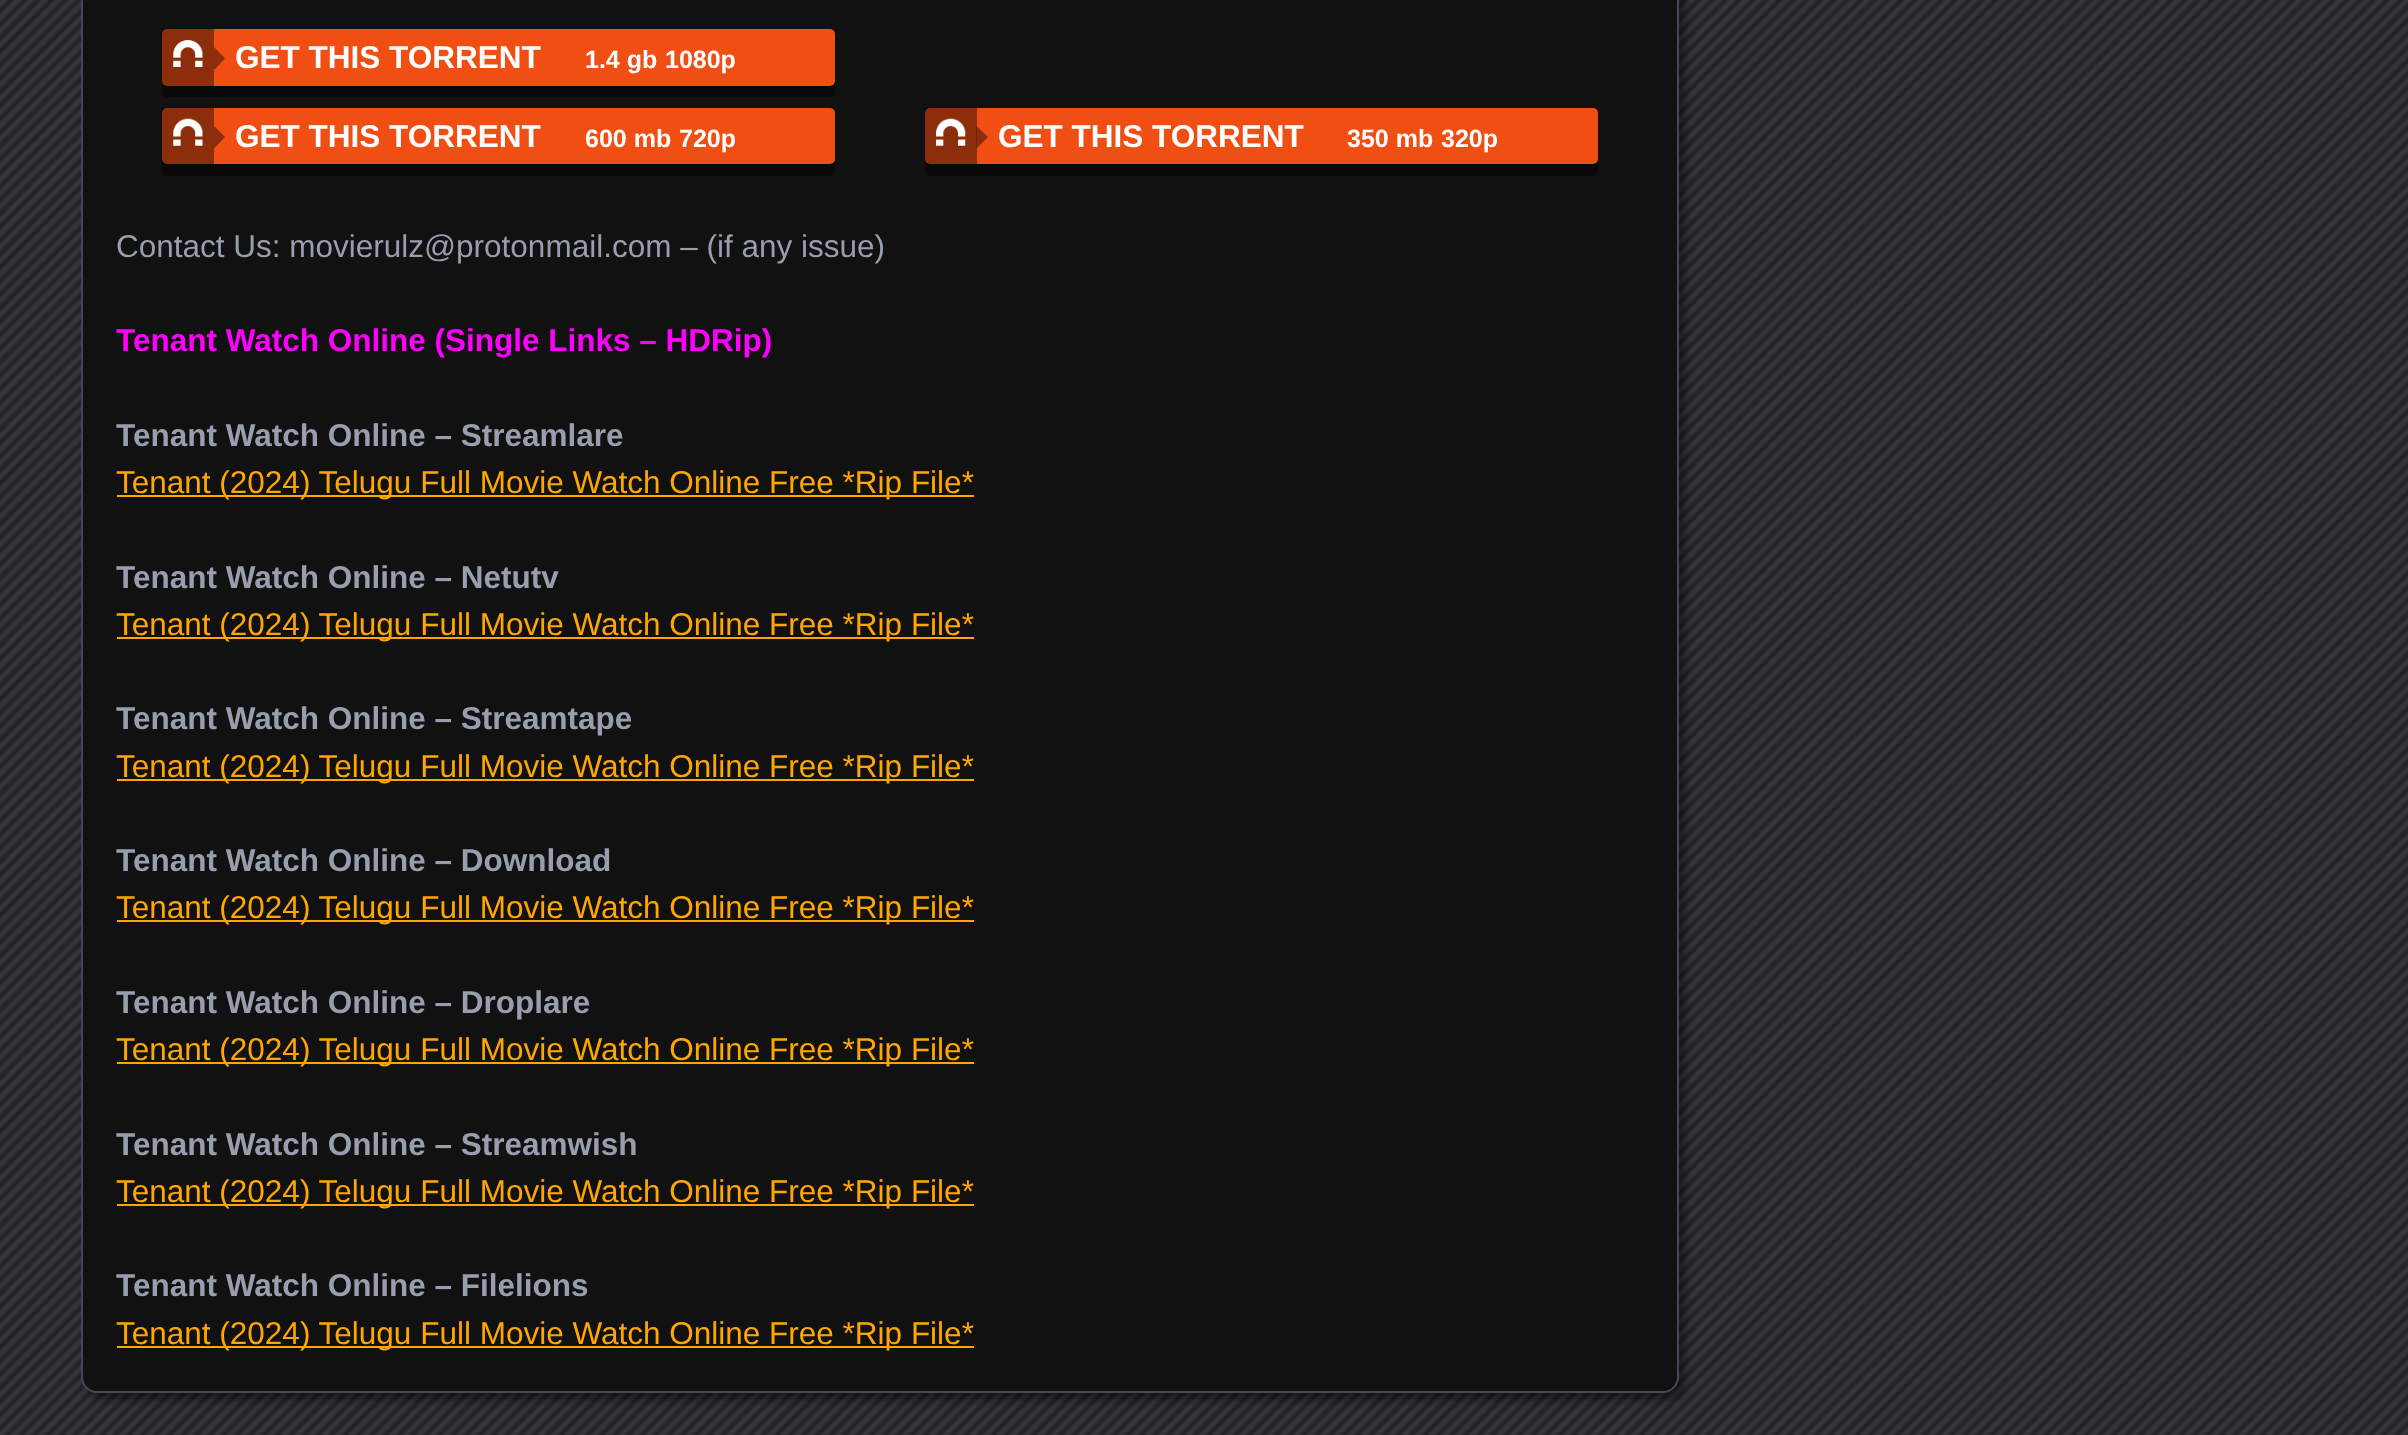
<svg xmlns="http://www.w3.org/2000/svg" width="2408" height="1435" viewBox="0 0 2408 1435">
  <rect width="100%" height="100%" fill="rgb(32,34,40)"/>
  <image x="0" y="0" width="2408" height="1435" href="pic1.png"/>
  <rect x="88" y="-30" width="1597" height="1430" rx="16" fill="rgba(0,0,0,0.45)" filter="blur(4.5px)"/>
  <rect x="82" y="-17" width="1596" height="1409" rx="15" fill="rgb(17,17,17)" stroke="rgb(68,72,85)" stroke-width="2"/>
  <path d="M162 81V92C162 95 164 97 167 97H830C833 97 835 95 835 92V44V81C835 83 833 86 830 86H166C164 86 162 83 162 81Z" fill="rgb(9,9,9)"/>
  <rect x="162" y="29" width="673" height="57" rx="5" fill="rgb(241,78,19)"/>
  <rect x="162" y="29" width="52" height="57" fill="rgba(0,0,0,0.42)"/>
  <image x="173" y="40" width="30" height="27" href="pic2.png"/>
  <path d="M214 70V47L225 58.5Z" fill="rgb(140,45,11)"/>
  <text x="235" y="68" font-family="Liberation Sans" font-size="31.5" font-weight="bold" fill="rgb(255,255,255)">GET THIS TORRENT</text>
  <g font-family="Liberation Sans" font-size="25" font-weight="bold" fill="rgb(255,255,255)">
    <text x="585" y="68">1.4 gb</text>
    <text x="665" y="68">1080p</text>
  </g>
  <path d="M162 160V171C162 174 164 176 167 176H830C833 176 835 174 835 171V122V160C835 162 833 164 830 164H166C164 164 162 162 162 160Z" fill="rgb(9,9,9)"/>
  <rect x="162" y="108" width="673" height="56" rx="5" fill="rgb(241,78,19)"/>
  <rect x="162" y="108" width="52" height="56" fill="rgba(0,0,0,0.42)"/>
  <image x="173" y="118" width="30" height="28" href="pic3.png"/>
  <path d="M214 148.5V126L225 137Z" fill="rgb(140,45,11)"/>
  <text x="235" y="147" font-family="Liberation Sans" font-size="31.5" font-weight="bold" fill="rgb(255,255,255)">GET THIS TORRENT</text>
  <g font-family="Liberation Sans" font-size="25" font-weight="bold" fill="rgb(255,255,255)">
    <text x="585" y="147">600 mb</text>
    <text x="679" y="147">720p</text>
  </g>
  <path d="M925 161V171C925 174 927 176 930 176H1593C1596 176 1598 174 1598 171V124V122V160C1598 162 1595 164 1593 164H929C927 164 926 163 925 161Z" fill="rgb(9,9,9)"/>
  <rect x="925" y="108" width="673" height="56" rx="5" fill="rgb(241,78,19)"/>
  <rect x="925" y="108" width="52" height="56" fill="rgba(0,0,0,0.42)"/>
  <image x="936" y="118" width="30" height="28" href="pic4.png"/>
  <path d="M976.5 148.5V126L988 137Z" fill="rgba(0,0,0,0.42)"/>
  <text x="998" y="147" font-family="Liberation Sans" font-size="31.5" font-weight="bold" fill="rgb(255,255,255)">GET THIS TORRENT</text>
  <g font-family="Liberation Sans" font-size="25" font-weight="bold" fill="rgb(255,255,255)">
    <text x="1347" y="147">350 mb</text>
    <text x="1441" y="147">320p</text>
  </g>
  <text x="116" y="257" font-family="Liberation Sans" font-size="31.5" fill="rgb(152,158,174)">Contact Us: movierulz@protonmail.com – (if any issue)</text>
  <text x="116" y="351" font-family="Liberation Sans" font-size="31.5" font-weight="bold" fill="rgb(255,0,255)">Tenant Watch Online (Single Links – HDRip)</text>
  <text x="116" y="446" font-family="Liberation Sans" font-size="31.5" font-weight="bold" fill="rgb(152,158,174)">Tenant Watch Online – Streamlare</text>
  <rect x="117" y="495" width="857" height="2" fill="rgb(255,166,0)"/>
  <text x="116" y="493" font-family="Liberation Sans" font-size="31.5" fill="rgb(255,166,0)">Tenant (2024) Telugu Full Movie Watch Online Free *Rip File*</text>
  <text x="116" y="588" font-family="Liberation Sans" font-size="31.5" font-weight="bold" fill="rgb(152,158,174)">Tenant Watch Online – Netutv</text>
  <rect x="117" y="637" width="857" height="2" fill="rgb(255,166,0)"/>
  <text x="116" y="635" font-family="Liberation Sans" font-size="31.5" fill="rgb(255,166,0)">Tenant (2024) Telugu Full Movie Watch Online Free *Rip File*</text>
  <text x="116" y="729" font-family="Liberation Sans" font-size="31.5" font-weight="bold" fill="rgb(152,158,174)">Tenant Watch Online – Streamtape</text>
  <rect x="117" y="779" width="857" height="2" fill="rgb(255,166,0)"/>
  <text x="116" y="777" font-family="Liberation Sans" font-size="31.5" fill="rgb(255,166,0)">Tenant (2024) Telugu Full Movie Watch Online Free *Rip File*</text>
  <text x="116" y="871" font-family="Liberation Sans" font-size="31.5" font-weight="bold" fill="rgb(152,158,174)">Tenant Watch Online – Download</text>
  <rect x="117" y="920" width="857" height="2" fill="rgb(255,166,0)"/>
  <text x="116" y="918" font-family="Liberation Sans" font-size="31.5" fill="rgb(255,166,0)">Tenant (2024) Telugu Full Movie Watch Online Free *Rip File*</text>
  <text x="116" y="1013" font-family="Liberation Sans" font-size="31.5" font-weight="bold" fill="rgb(152,158,174)">Tenant Watch Online – Droplare</text>
  <rect x="117" y="1062" width="857" height="2" fill="rgb(255,166,0)"/>
  <text x="116" y="1060" font-family="Liberation Sans" font-size="31.5" fill="rgb(255,166,0)">Tenant (2024) Telugu Full Movie Watch Online Free *Rip File*</text>
  <text x="116" y="1155" font-family="Liberation Sans" font-size="31.5" font-weight="bold" fill="rgb(152,158,174)">Tenant Watch Online – Streamwish</text>
  <rect x="117" y="1204" width="857" height="2" fill="rgb(255,166,0)"/>
  <text x="116" y="1202" font-family="Liberation Sans" font-size="31.5" fill="rgb(255,166,0)">Tenant (2024) Telugu Full Movie Watch Online Free *Rip File*</text>
  <text x="116" y="1296" font-family="Liberation Sans" font-size="31.5" font-weight="bold" fill="rgb(152,158,174)">Tenant Watch Online – Filelions</text>
  <rect x="117" y="1346" width="857" height="2" fill="rgb(255,166,0)"/>
  <text x="116" y="1344" font-family="Liberation Sans" font-size="31.5" fill="rgb(255,166,0)">Tenant (2024) Telugu Full Movie Watch Online Free *Rip File*</text>
</svg>
